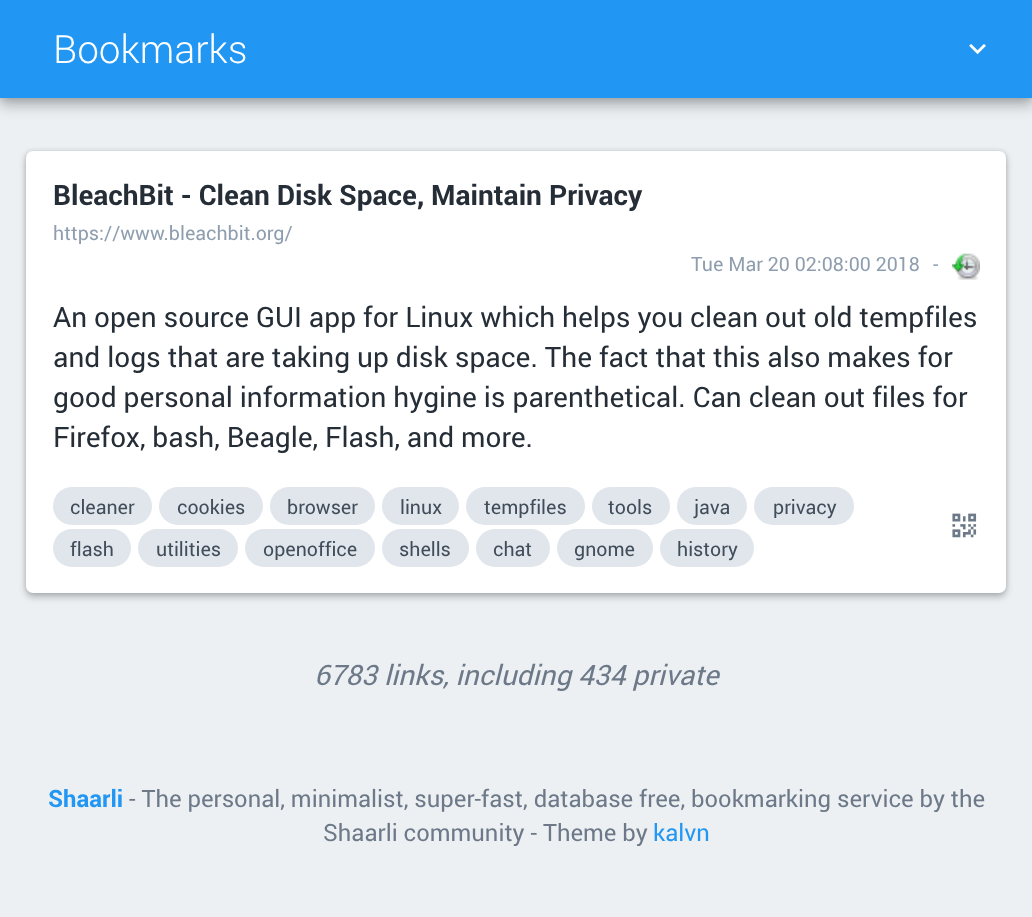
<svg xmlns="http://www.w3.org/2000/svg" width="1032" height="917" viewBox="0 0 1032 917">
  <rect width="100%" height="100%" fill="rgb(236,240,243)"/>
  <rect x="0" y="7" width="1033" height="98" fill="rgba(0,0,0,0.28)" filter="blur(7px)"/>
  <rect x="0" y="0" width="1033" height="98" fill="rgba(0,0,0,0.14)" filter="blur(3.5px)"/>
  <rect x="0" y="0" width="1032" height="98" fill="rgb(33,150,243)"/>
  <text x="53" y="63" font-family="Roboto" font-size="39" font-weight="300" fill="rgb(255,255,255)">Bookmarks</text>
  <image x="969" y="44" width="17" height="11" href="pic1.png"/>
  <rect x="26" y="154" width="980" height="443" rx="7" fill="rgba(0,0,0,0.24)" filter="blur(3.5px)"/>
  <rect x="26" y="151" width="980" height="442" rx="7" fill="rgba(0,0,0,0.12)" filter="blur(2px)"/>
  <path d="M33 149C29 149 26 152 26 156V587V158C26 154 29 150 33 150H999C1002 150 1005 153 1006 156C1006 152 1003 149 999 149Z" fill="rgb(224,230,235)"/>
  <rect x="26" y="151" width="980" height="442" rx="7" fill="rgb(255,255,255)"/>
  <text x="53" y="205" font-family="Roboto" font-size="28" font-weight="bold" fill="rgb(37,45,55)">BleachBit - Clean Disk Space, Maintain Privacy</text>
  <g font-family="Roboto" font-size="19.6" fill="rgb(143,158,175)">
    <text x="53" y="240">https://www.bleachbit.org/</text>
    <text x="691" y="271">Tue Mar 20 02:08:00 2018</text>
    <text x="933" y="271">-</text>
  </g>
  <image x="952" y="253" width="28" height="27" href="pic2.png"/>
  <g font-family="Roboto" font-size="28" fill="rgb(37,45,55)">
    <text>
      <tspan x="53" y="327">An open source GUI app for Linux which helps you clean out old tempfiles</tspan>
      <tspan x="53" y="367">and logs that are taking up disk space. The fact that this also makes for</tspan>
      <tspan x="53" y="407">good personal information hygine is parenthetical. Can clean out files for</tspan>
      <tspan x="53" y="447">Firefox, bash, Beagle, Flash, and more.</tspan>
    </text>
  </g>
  <rect x="53" y="487" width="99" height="38" rx="19" fill="rgb(224,230,235)"/>
  <text x="70" y="514" font-family="Roboto" font-size="19.6" fill="rgb(65,77,90)">cleaner</text>
  <rect x="159" y="487" width="104" height="38" rx="19" fill="rgb(224,230,235)"/>
  <text x="177" y="514" font-family="Roboto" font-size="19.6" fill="rgb(65,77,90)">cookies</text>
  <rect x="270" y="487" width="105" height="38" rx="19" fill="rgb(224,230,235)"/>
  <text x="287" y="514" font-family="Roboto" font-size="19.6" fill="rgb(65,77,90)">browser</text>
  <rect x="382" y="487" width="77" height="38" rx="19" fill="rgb(224,230,235)"/>
  <text x="400" y="514" font-family="Roboto" font-size="19.6" fill="rgb(65,77,90)">linux</text>
  <rect x="466" y="487" width="119" height="38" rx="19" fill="rgb(224,230,235)"/>
  <text x="484" y="514" font-family="Roboto" font-size="19.6" fill="rgb(65,77,90)">tempfiles</text>
  <rect x="592" y="487" width="78" height="38" rx="19" fill="rgb(224,230,235)"/>
  <text x="608" y="514" font-family="Roboto" font-size="19.6" fill="rgb(65,77,90)">tools</text>
  <rect x="677" y="487" width="70" height="38" rx="19" fill="rgb(224,230,235)"/>
  <text x="694" y="514" font-family="Roboto" font-size="19.6" fill="rgb(65,77,90)">java</text>
  <rect x="754" y="487" width="100" height="38" rx="19" fill="rgb(224,230,235)"/>
  <text x="773" y="514" font-family="Roboto" font-size="19.6" fill="rgb(65,77,90)">privacy</text>
  <rect x="53" y="529" width="78" height="38" rx="19" fill="rgb(224,230,235)"/>
  <text x="70" y="556" font-family="Roboto" font-size="19.6" fill="rgb(65,77,90)">flash</text>
  <rect x="138" y="529" width="100" height="38" rx="19" fill="rgb(224,230,235)"/>
  <text x="156" y="556" font-family="Roboto" font-size="19.6" fill="rgb(65,77,90)">utilities</text>
  <rect x="245" y="529" width="130" height="38" rx="19" fill="rgb(224,230,235)"/>
  <text x="263" y="556" font-family="Roboto" font-size="19.6" fill="rgb(65,77,90)">openoffice</text>
  <rect x="382" y="529" width="87" height="38" rx="19" fill="rgb(224,230,235)"/>
  <text x="399" y="556" font-family="Roboto" font-size="19.6" fill="rgb(65,77,90)">shells</text>
  <rect x="476" y="529" width="74" height="38" rx="19" fill="rgb(224,230,235)"/>
  <text x="493" y="556" font-family="Roboto" font-size="19.6" fill="rgb(65,77,90)">chat</text>
  <rect x="557" y="529" width="96" height="38" rx="19" fill="rgb(224,230,235)"/>
  <text x="574" y="556" font-family="Roboto" font-size="19.6" fill="rgb(65,77,90)">gnome</text>
  <rect x="660" y="529" width="94" height="38" rx="19" fill="rgb(224,230,235)"/>
  <text x="677" y="556" font-family="Roboto" font-size="19.6" fill="rgb(65,77,90)">history</text>
  <image x="952" y="513" width="25" height="25" href="pic3.png"/>
  <text x="314" y="685" font-family="Roboto" font-size="28" font-style="italic" fill="rgb(109,121,136)">6783 links, including 434 private</text>
  <text x="48" y="807" font-family="Roboto" font-size="23.8" font-weight="bold" fill="rgb(33,150,243)">Shaarli</text>
  <g font-family="Roboto" font-size="23.8" fill="rgb(109,121,136)">
    <text x="129" y="807">- The personal, minimalist, super-fast, database free, bookmarking service by the</text>
    <text x="323" y="841">Shaarli community - Theme by</text>
  </g>
  <text x="653" y="841" font-family="Roboto" font-size="23.8" fill="rgb(33,150,243)">kalvn</text>
</svg>
